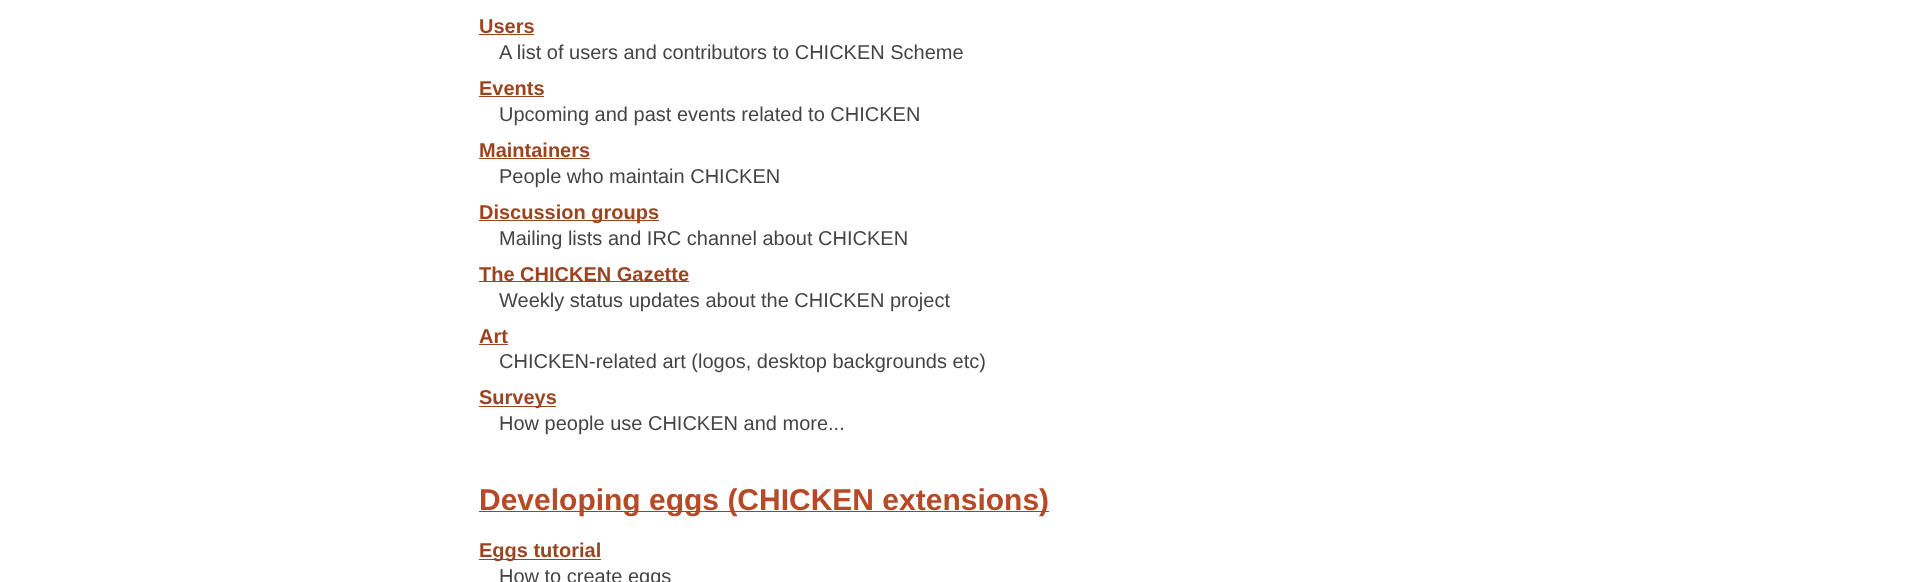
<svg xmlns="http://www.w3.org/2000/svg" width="1917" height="582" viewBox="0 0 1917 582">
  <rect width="100%" height="100%" fill="rgb(255,255,255)"/>
  <text x="479" y="33" font-family="Liberation Sans" font-size="20" font-weight="bold" fill="rgb(156,67,32)">Users</text>
  <rect x="479" y="34" width="55" height="1" fill="rgb(156,67,32)"/>
  <text x="499" y="59" font-family="Liberation Sans" font-size="20" fill="rgb(68,68,68)">A list of users and contributors to CHICKEN Scheme</text>
  <text x="479" y="95" font-family="Liberation Sans" font-size="20" font-weight="bold" fill="rgb(156,67,32)">Events</text>
  <rect x="479" y="96" width="65" height="1" fill="rgb(156,67,32)"/>
  <text x="499" y="121" font-family="Liberation Sans" font-size="20" fill="rgb(68,68,68)">Upcoming and past events related to CHICKEN</text>
  <text x="479" y="157" font-family="Liberation Sans" font-size="20" font-weight="bold" fill="rgb(156,67,32)">Maintainers</text>
  <rect x="479" y="158" width="111" height="1" fill="rgb(156,67,32)"/>
  <text x="499" y="183" font-family="Liberation Sans" font-size="20" fill="rgb(68,68,68)">People who maintain CHICKEN</text>
  <rect x="479" y="220" width="180" height="1" fill="rgb(156,67,32)"/>
  <text x="479" y="219" font-family="Liberation Sans" font-size="20" font-weight="bold" fill="rgb(156,67,32)">Discussion groups</text>
  <text x="499" y="245" font-family="Liberation Sans" font-size="20" fill="rgb(68,68,68)">Mailing lists and IRC channel about CHICKEN</text>
  <rect x="479" y="281" width="210" height="1" fill="rgb(156,67,32)"/>
  <text x="479" y="281" font-family="Liberation Sans" font-size="20" font-weight="bold" fill="rgb(156,67,32)">The CHICKEN Gazette</text>
  <text x="499" y="307" font-family="Liberation Sans" font-size="20" fill="rgb(68,68,68)">Weekly status updates about the CHICKEN project</text>
  <text x="479" y="343" font-family="Liberation Sans" font-size="20" font-weight="bold" fill="rgb(156,67,32)">Art</text>
  <rect x="479" y="344" width="29" height="1" fill="rgb(156,67,32)"/>
  <text x="499" y="368" font-family="Liberation Sans" font-size="20" fill="rgb(68,68,68)">CHICKEN-related art (logos, desktop backgrounds etc)</text>
  <rect x="479" y="406" width="77" height="1" fill="rgb(156,67,32)"/>
  <text x="479" y="404" font-family="Liberation Sans" font-size="20" font-weight="bold" fill="rgb(156,67,32)">Surveys</text>
  <text x="499" y="430" font-family="Liberation Sans" font-size="20" fill="rgb(68,68,68)">How people use CHICKEN and more...</text>
  <rect x="479" y="511" width="570" height="1" fill="rgb(156,67,32)"/>
  <text x="479" y="510" font-family="Liberation Sans" font-size="30" font-weight="bold" fill="rgb(182,73,38)">Developing eggs (CHICKEN extensions)</text>
  <rect x="479" y="559" width="122" height="1" fill="rgb(156,67,32)"/>
  <text x="479" y="557" font-family="Liberation Sans" font-size="20" font-weight="bold" fill="rgb(156,67,32)">Eggs tutorial</text>
  <text x="499" y="583" font-family="Liberation Sans" font-size="20" fill="rgb(68,68,68)">How to create eggs</text>
</svg>
